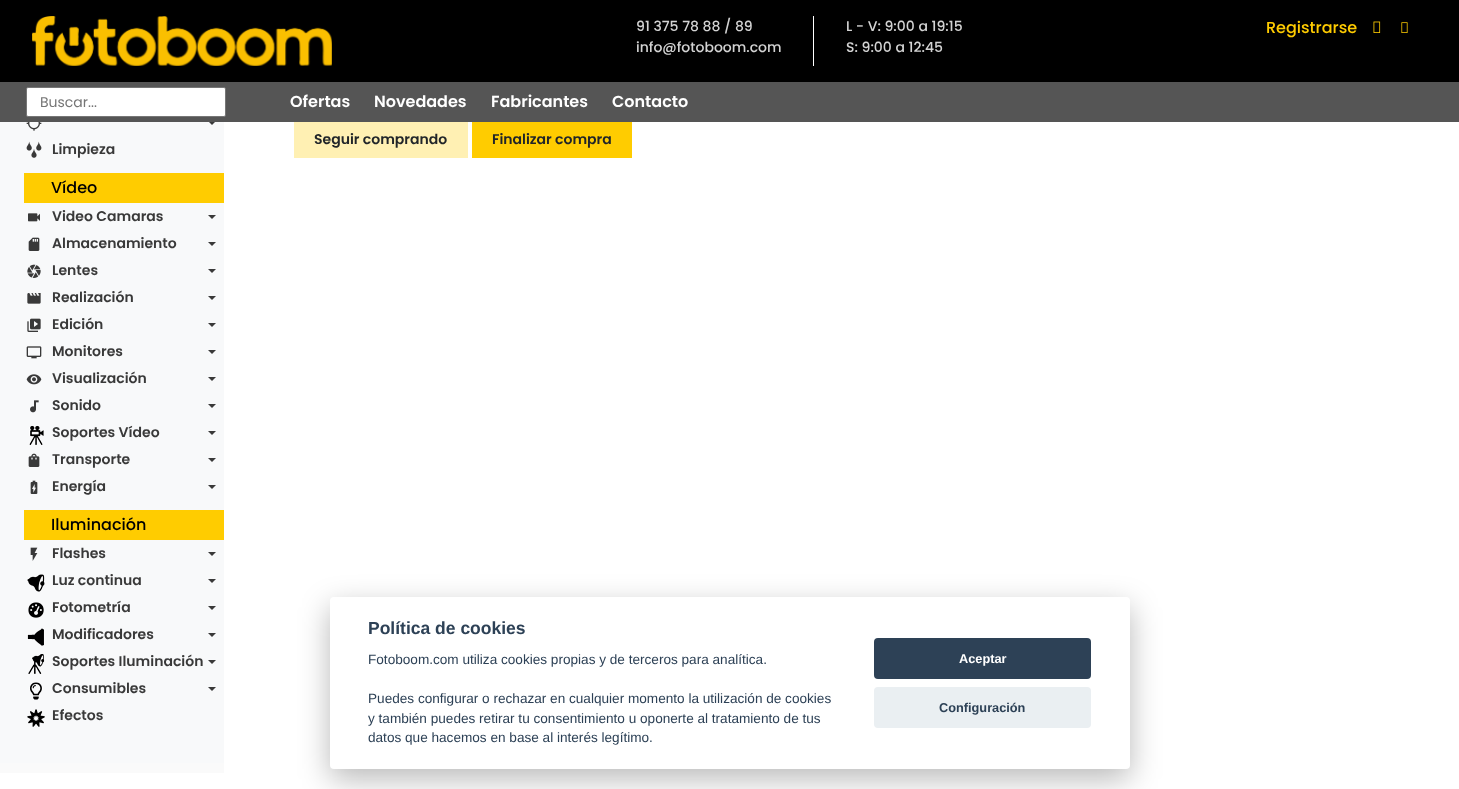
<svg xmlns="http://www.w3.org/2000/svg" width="1459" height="789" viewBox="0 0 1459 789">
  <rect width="100%" height="100%" fill="rgb(255,255,255)"/>
  <rect x="0" y="0" width="1459" height="82" fill="rgb(0,0,0)"/>
  <image x="32" y="16" width="300" height="50" href="pic1.png"/>
  <rect x="813" y="16" width="1" height="50" fill="rgb(255,255,255)"/>
  <g font-family="Poppins" font-size="14" font-weight="500" fill="rgb(211,211,211)">
    <text>
      <tspan x="636" y="31">91 375 78 88 / 89</tspan>
      <tspan x="636" y="52">info@fotoboom.com</tspan>
    </text>
    <text>
      <tspan x="846" y="31">L - V: 9:00 a 19:15</tspan>
      <tspan x="846" y="52">S: 9:00 a 12:45</tspan>
    </text>
  </g>
  <text x="1266" y="33" font-family="Poppins" font-size="16" font-weight="500" fill="rgb(255,204,0)">Registrarse</text>
  <image x="1373" y="21" width="8" height="12" href="pic2.png"/>
  <image x="1401" y="22" width="7" height="11" href="pic3.png"/>
  <rect x="0" y="122" width="224" height="641" fill="rgb(248,249,250)"/>
  <path d="M208 121H216L212 125Z" fill="rgb(57,57,57)"/>
  <rect x="0" y="82" width="1459" height="40" fill="rgb(85,85,85)"/>
  <rect x="26.5" y="87.5" width="199" height="29" rx="1.5" fill="rgb(255,255,255)" stroke="rgb(118,118,118)"/>
  <text x="40" y="107" font-family="Poppins" font-size="14" fill="rgb(117,117,117)">Buscar...</text>
  <g font-family="Poppins" font-size="16" font-weight="600" fill="rgb(255,255,255)">
    <text x="290" y="107">Ofertas</text>
    <text x="374" y="107">Novedades</text>
    <text x="491" y="107">Fabricantes</text>
    <text x="612" y="107">Contacto</text>
  </g>
  <rect x="294" y="122" width="174" height="36" fill="rgb(255,240,179)"/>
  <text x="314" y="144" font-family="Poppins" font-size="14" font-weight="600" fill="rgb(33,37,41)">Seguir comprando</text>
  <rect x="472" y="122" width="160" height="36" fill="rgb(255,204,0)"/>
  <text x="492" y="144" font-family="Poppins" font-size="14" font-weight="600" fill="rgb(33,37,41)">Finalizar compra</text>
  <rect x="0" y="763" width="224" height="10" fill="rgb(250,250,250)"/>
  <image x="26" y="122" width="16" height="9" href="pic4.png"/>
  <image x="26" y="141" width="16" height="17" href="pic5.png"/>
  <text x="52" y="154" font-family="Poppins" font-size="14" font-weight="600" fill="rgb(57,57,57)">Limpieza</text>
  <rect x="24" y="173" width="200" height="30" fill="rgb(255,204,0)"/>
  <text x="51" y="193" font-family="Poppins" font-size="16" font-weight="500" fill="rgb(0,0,0)">Vídeo</text>
  <image x="28" y="213" width="12" height="9" href="pic6.png"/>
  <text x="52" y="221" font-family="Poppins" font-size="14" font-weight="600" fill="rgb(57,57,57)">Video Camaras</text>
  <path d="M208 215H216L212 219Z" fill="rgb(57,57,57)"/>
  <image x="28" y="237" width="12" height="14" href="pic7.png"/>
  <text x="52" y="248" font-family="Poppins" font-size="14" font-weight="600" fill="rgb(57,57,57)">Almacenamiento</text>
  <path d="M208 242H216L212 246Z" fill="rgb(57,57,57)"/>
  <image x="27" y="264" width="14" height="14" href="pic8.png"/>
  <text x="52" y="275" font-family="Poppins" font-size="14" font-weight="600" fill="rgb(57,57,57)">Lentes</text>
  <path d="M208 269H216L212 273Z" fill="rgb(57,57,57)"/>
  <image x="27" y="293" width="14" height="11" href="pic9.png"/>
  <text x="52" y="302" font-family="Poppins" font-size="14" font-weight="600" fill="rgb(57,57,57)">Realización</text>
  <path d="M208 296H216L212 300Z" fill="rgb(57,57,57)"/>
  <image x="27" y="318" width="14" height="14" href="pic10.png"/>
  <text x="52" y="329" font-family="Poppins" font-size="14" font-weight="600" fill="rgb(57,57,57)">Edición</text>
  <path d="M208 323H216L212 327Z" fill="rgb(57,57,57)"/>
  <image x="26" y="346" width="16" height="13" href="pic11.png"/>
  <text x="52" y="356" font-family="Poppins" font-size="14" font-weight="600" fill="rgb(57,57,57)">Monitores</text>
  <path d="M208 350H216L212 354Z" fill="rgb(57,57,57)"/>
  <image x="26" y="374" width="16" height="11" href="pic12.png"/>
  <text x="52" y="383" font-family="Poppins" font-size="14" font-weight="600" fill="rgb(57,57,57)">Visualización</text>
  <path d="M208 377H216L212 381Z" fill="rgb(57,57,57)"/>
  <image x="30" y="400" width="9" height="13" href="pic13.png"/>
  <text x="52" y="410" font-family="Poppins" font-size="14" font-weight="600" fill="rgb(57,57,57)">Sonido</text>
  <path d="M208 404H216L212 408Z" fill="rgb(57,57,57)"/>
  <image x="29" y="425" width="16" height="20" href="pic14.png"/>
  <text x="52" y="437" font-family="Poppins" font-size="14" font-weight="600" fill="rgb(57,57,57)">Soportes Vídeo</text>
  <path d="M208 431H216L212 435Z" fill="rgb(57,57,57)"/>
  <image x="28" y="453" width="12" height="14" href="pic15.png"/>
  <text x="52" y="464" font-family="Poppins" font-size="14" font-weight="600" fill="rgb(57,57,57)">Transporte</text>
  <path d="M208 458H216L212 462Z" fill="rgb(57,57,57)"/>
  <image x="30" y="480" width="8" height="14" href="pic16.png"/>
  <text x="52" y="491" font-family="Poppins" font-size="14" font-weight="600" fill="rgb(57,57,57)">Energía</text>
  <path d="M208 485H216L212 489Z" fill="rgb(57,57,57)"/>
  <rect x="24" y="510" width="200" height="30" fill="rgb(255,204,0)"/>
  <text x="51" y="530" font-family="Poppins" font-size="16" font-weight="500" fill="rgb(0,0,0)">Iluminación</text>
  <image x="30" y="547" width="8" height="14" href="pic17.png"/>
  <text x="52" y="558" font-family="Poppins" font-size="14" font-weight="600" fill="rgb(57,57,57)">Flashes</text>
  <path d="M208 552H216L212 556Z" fill="rgb(57,57,57)"/>
  <image x="27" y="574" width="18" height="18" href="pic18.png"/>
  <text x="52" y="585" font-family="Poppins" font-size="14" font-weight="600" fill="rgb(57,57,57)">Luz continua</text>
  <path d="M208 579H216L212 583Z" fill="rgb(57,57,57)"/>
  <image x="28" y="602" width="16" height="16" href="pic19.png"/>
  <text x="52" y="612" font-family="Poppins" font-size="14" font-weight="600" fill="rgb(57,57,57)">Fotometría</text>
  <path d="M208 606H216L212 610Z" fill="rgb(57,57,57)"/>
  <image x="27" y="628" width="18" height="18" href="pic20.png"/>
  <text x="52" y="639" font-family="Poppins" font-size="14" font-weight="600" fill="rgb(57,57,57)">Modificadores</text>
  <path d="M208 633H216L212 637Z" fill="rgb(57,57,57)"/>
  <image x="28" y="654" width="17" height="20" href="pic21.png"/>
  <text x="52" y="666" font-family="Poppins" font-size="14" font-weight="600" fill="rgb(57,57,57)">Soportes Iluminación</text>
  <path d="M208 660H216L212 664Z" fill="rgb(57,57,57)"/>
  <image x="29" y="682" width="14" height="18" href="pic22.png"/>
  <text x="52" y="693" font-family="Poppins" font-size="14" font-weight="600" fill="rgb(57,57,57)">Consumibles</text>
  <path d="M208 687H216L212 691Z" fill="rgb(57,57,57)"/>
  <image x="27" y="709" width="18" height="18" href="pic23.png"/>
  <text x="52" y="720" font-family="Poppins" font-size="14" font-weight="600" fill="rgb(57,57,57)">Efectos</text>
  <rect x="330" y="607" width="800" height="172" rx="4" fill="rgba(2,2,3,0.28)" filter="blur(15px)"/>
  <rect x="330" y="597" width="800" height="172" rx="4" fill="rgb(255,255,255)"/>
  <text x="368" y="634" font-family="Liberation Sans" font-size="17.5" font-weight="bold" fill="rgb(45,65,86)">Política de cookies</text>
  <g font-family="Liberation Sans" font-size="13.6" fill="rgb(45,65,86)">
    <text x="368" y="664">Fotoboom.com utiliza cookies propias y de terceros para analítica.</text>
    <text>
      <tspan x="368" y="703">Puedes configurar o rechazar en cualquier momento la utilización de cookies</tspan>
      <tspan x="368" y="723">y también puedes retirar tu consentimiento u oponerte al tratamiento de tus</tspan>
      <tspan x="368" y="742">datos que hacemos en base al interés legítimo.</tspan>
    </text>
  </g>
  <rect x="874" y="638" width="217" height="41" rx="4" fill="rgb(45,65,86)"/>
  <text x="959" y="663" font-family="Liberation Sans" font-size="12.75" font-weight="bold" fill="rgb(255,255,255)">Aceptar</text>
  <rect x="874" y="687" width="217" height="41" rx="4" fill="rgb(234,239,242)"/>
  <text x="939" y="712" font-family="Liberation Sans" font-size="12.75" font-weight="bold" fill="rgb(45,65,86)">Configuración</text>
</svg>
